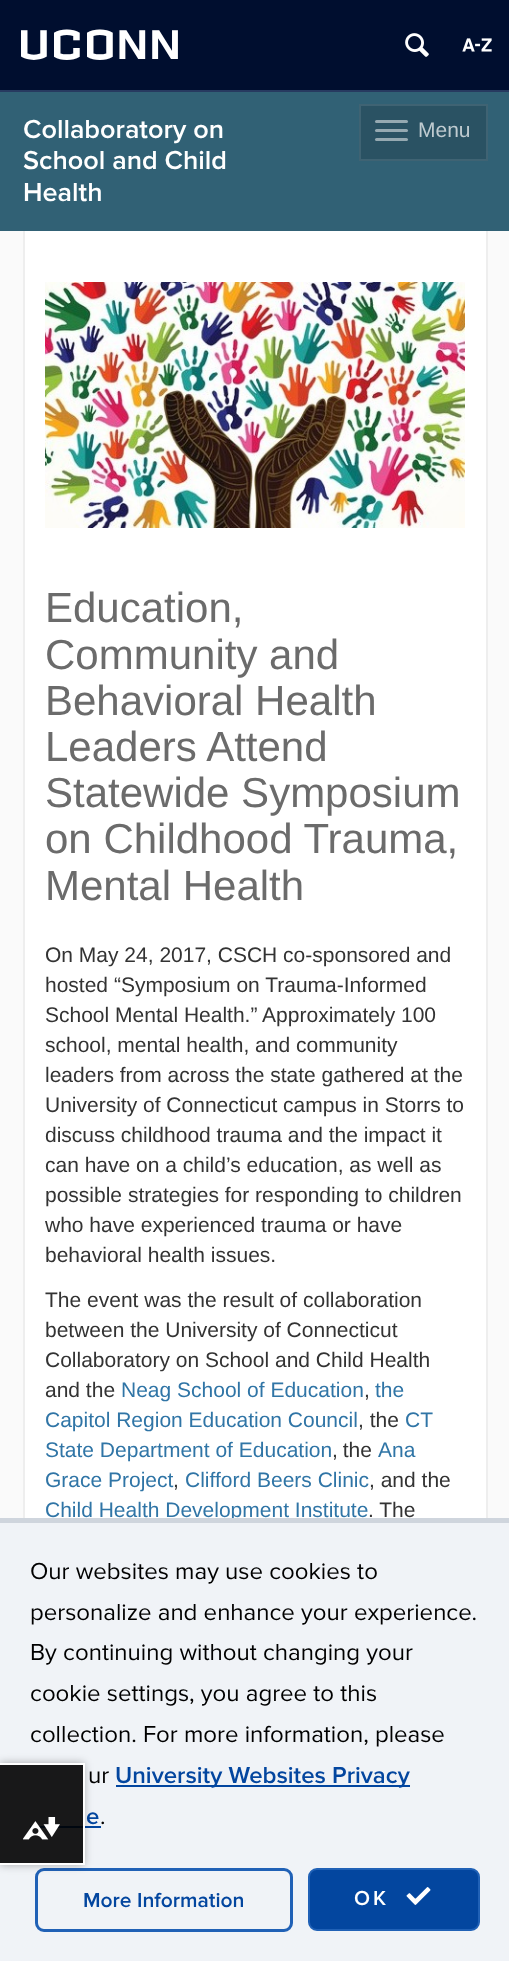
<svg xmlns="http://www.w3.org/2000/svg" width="509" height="1961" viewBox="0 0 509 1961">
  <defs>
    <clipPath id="clip1"><path d="M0 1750H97V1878H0ZM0 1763H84V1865H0Z" clip-rule="evenodd"/></clipPath>
  </defs>
  <rect width="100%" height="100%" fill="rgb(250,250,250)"/>
  <rect x="0" y="0" width="509" height="90" fill="rgb(0,14,47)"/>
  <rect x="0" y="90" width="509" height="2" fill="rgb(39,58,96)"/>
  <text x="21" y="59" font-family="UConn" font-size="48" letter-spacing="4.5" fill="rgb(255,255,255)">UCONN</text>
  <image x="405" y="33" width="24" height="24" href="pic1.png"/>
  <image x="462" y="38" width="30" height="14" href="pic2.png"/>
  <rect x="0" y="92" width="509" height="139" fill="rgb(49,97,117)"/>
  <g font-family="Proxima Nova" font-size="27" font-weight="600" fill="rgb(255,255,255)">
    <text>
      <tspan x="23" y="138">Collaboratory on</tspan>
      <tspan x="23" y="169">School and Child</tspan>
      <tspan x="23" y="201">Health</tspan>
    </text>
  </g>
  <rect x="360" y="105" width="127" height="55" fill="rgb(42,82,99)" stroke="rgb(63,99,115)" stroke-width="2"/>
  <rect x="375" y="120" width="33" height="3" rx="1.5" fill="rgb(149,169,177)"/>
  <rect x="375" y="129" width="33" height="3" rx="1.5" fill="rgb(149,169,177)"/>
  <rect x="375" y="138" width="33" height="3" rx="1.5" fill="rgb(149,169,177)"/>
  <text x="418" y="137" font-family="Liberation Sans" font-size="21" fill="rgb(191,203,208)">Menu</text>
  <rect x="25" y="231" width="461" height="1287" fill="rgb(255,255,255)"/>
  <rect x="486" y="231" width="2" height="1287" fill="rgb(238,238,238)"/>
  <rect x="23" y="231" width="2" height="1287" fill="rgb(238,238,238)"/>
  <image x="45" y="282" width="420" height="246" href="pic3.png"/>
  <g font-family="Liberation Sans" font-size="42" fill="rgb(107,107,107)">
    <text>
      <tspan x="45" y="622">Education,</tspan>
      <tspan x="45" y="669">Community and</tspan>
      <tspan x="45" y="715">Behavioral Health</tspan>
      <tspan x="45" y="761">Leaders Attend</tspan>
      <tspan x="45" y="807">Statewide Symposium</tspan>
      <tspan x="45" y="853">on Childhood Trauma,</tspan>
      <tspan x="45" y="900">Mental Health</tspan>
    </text>
  </g>
  <g font-family="Liberation Sans" font-size="21" fill="rgb(51,51,51)">
    <text>
      <tspan x="45" y="962">On May 24, 2017, CSCH co-sponsored and</tspan>
      <tspan x="45" y="992">hosted “Symposium on Trauma-Informed</tspan>
      <tspan x="45" y="1022">School Mental Health.” Approximately 100</tspan>
      <tspan x="45" y="1052">school, mental health, and community</tspan>
      <tspan x="45" y="1082">leaders from across the state gathered at the</tspan>
      <tspan x="45" y="1112">University of Connecticut campus in Storrs to</tspan>
      <tspan x="45" y="1142">discuss childhood trauma and the impact it</tspan>
      <tspan x="45" y="1172">can have on a child’s education, as well as</tspan>
      <tspan x="45" y="1202">possible strategies for responding to children</tspan>
      <tspan x="45" y="1232">who have experienced trauma or have</tspan>
      <tspan x="45" y="1262">behavioral health issues.</tspan>
    </text>
    <text>
      <tspan x="45" y="1307">The event was the result of collaboration</tspan>
      <tspan x="45" y="1337">between the University of Connecticut</tspan>
      <tspan x="45" y="1367">Collaboratory on School and Child Health</tspan>
      <tspan x="45" y="1397">and the</tspan>
    </text>
  </g>
  <text x="121" y="1397" font-family="Liberation Sans" font-size="21" fill="rgb(48,117,166)">Neag School of Education</text>
  <text x="364" y="1397" font-family="Liberation Sans" font-size="21" fill="rgb(51,51,51)">,</text>
  <g font-family="Liberation Sans" font-size="21" fill="rgb(48,117,166)">
    <text x="375" y="1397">the</text>
    <text x="45" y="1427">Capitol Region Education Council</text>
  </g>
  <text x="358" y="1427" font-family="Liberation Sans" font-size="21" fill="rgb(51,51,51)">, the</text>
  <g font-family="Liberation Sans" font-size="21" fill="rgb(48,117,166)">
    <text x="405" y="1427">CT</text>
    <text x="45" y="1457">State Department of Education</text>
  </g>
  <text x="332" y="1457" word-spacing="-1" font-family="Liberation Sans" font-size="21" fill="rgb(51,51,51)">, the</text>
  <g font-family="Liberation Sans" font-size="21" fill="rgb(48,117,166)">
    <text x="378" y="1457">Ana</text>
    <text x="45" y="1487">Grace Project</text>
  </g>
  <text x="173" y="1487" font-family="Liberation Sans" font-size="21" fill="rgb(51,51,51)">,</text>
  <text x="185" y="1487" font-family="Liberation Sans" font-size="21" fill="rgb(48,117,166)">Clifford Beers Clinic</text>
  <text x="369" y="1487" font-family="Liberation Sans" font-size="21" fill="rgb(51,51,51)">, and the</text>
  <text x="45" y="1517" font-family="Liberation Sans" font-size="21" fill="rgb(48,117,166)">Child Health Development Institute</text>
  <text x="368" y="1517" font-family="Liberation Sans" font-size="21" fill="rgb(51,51,51)">. The</text>
  <rect x="0" y="1523" width="509" height="438" fill="rgb(240,243,247)"/>
  <rect x="0" y="1518" width="509" height="5" fill="rgb(207,213,221)"/>
  <g font-family="Proxima Nova" font-size="24" fill="rgb(0,0,0)">
    <text>
      <tspan x="30" y="1579">Our websites may use cookies to</tspan>
      <tspan x="30" y="1620">personalize and enhance your experience.</tspan>
      <tspan x="30" y="1660">By continuing without changing your</tspan>
      <tspan x="30" y="1701">cookie settings, you agree to this</tspan>
      <tspan x="30" y="1742">collection. For more information, please</tspan>
    </text>
    <text x="88" y="1783">ur</text>
  </g>
  <rect x="116" y="1785" width="294" height="2" fill="rgb(3,70,159)"/>
  <g font-family="Proxima Nova" font-size="24" font-weight="600" fill="rgb(3,70,159)">
    <text x="115" y="1783">University Websites Privacy</text>
    <text x="86" y="1824">e</text>
  </g>
  <rect x="30" y="1826" width="71" height="2" fill="rgb(3,70,159)"/>
  <text x="100" y="1824" font-family="Proxima Nova" font-size="24" fill="rgb(0,0,0)">.</text>
  <rect x="36.5" y="1869.5" width="255" height="61" rx="7.5" fill="none" stroke="rgb(32,97,182)" stroke-width="3"/>
  <text x="83" y="1907" font-family="Proxima Nova" font-size="21" font-weight="600" fill="rgb(3,70,159)">More Information</text>
  <rect x="309" y="1869" width="170" height="61" rx="8" fill="rgb(3,70,159)" stroke="rgb(32,97,182)" stroke-width="2"/>
  <text x="354" y="1905" font-family="Proxima Nova" font-size="21" font-weight="600" letter-spacing="3" fill="rgb(255,255,255)">OK</text>
  <image x="406" y="1887" width="25" height="18" href="pic4.png"/>
  <g clip-path="url(#clip1)">
    <rect x="0" y="1763" width="84" height="102" fill="rgba(0,0,0,0.3)" filter="blur(4px)"/>
  </g>
  <rect x="0" y="1765" width="83" height="98" fill="rgba(0,0,0,0.9)"/>
  <rect x="0" y="1763" width="84" height="2" fill="rgb(255,255,255)"/>
  <rect x="83" y="1763" width="2" height="102" fill="rgb(255,255,255)"/>
  <rect x="0" y="1863" width="84" height="2" fill="rgb(255,255,255)"/>
  <image x="23" y="1817" width="37" height="23" href="pic5.png"/>
</svg>
